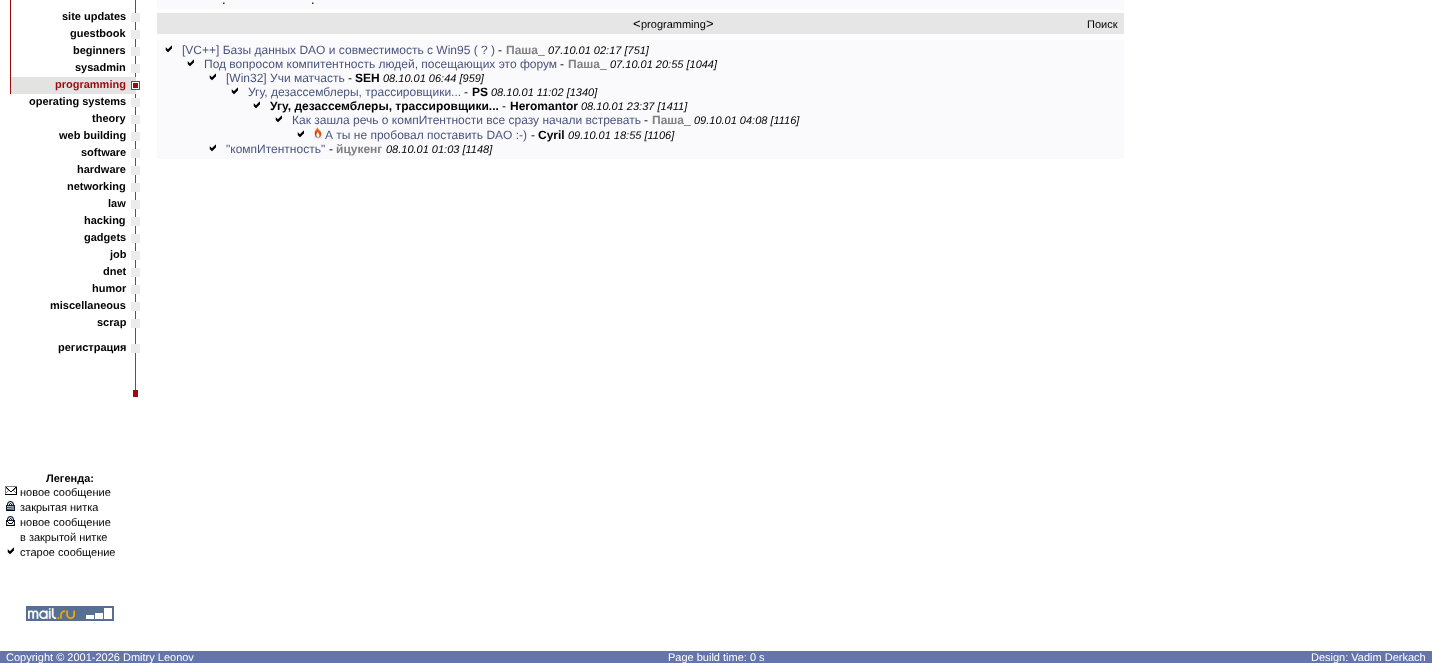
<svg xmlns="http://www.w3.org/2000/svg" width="1432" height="663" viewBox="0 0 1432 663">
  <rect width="100%" height="100%" fill="rgb(255,255,255)"/>
  <rect x="10" y="0" width="1" height="1" fill="rgb(156,10,14)"/>
  <rect x="135" y="0" width="1" height="77" fill="rgb(85,85,85)"/>
  <rect x="10" y="1" width="1" height="93" fill="rgb(156,10,14)"/>
  <text x="62" y="20" font-family="Liberation Sans" font-size="11" font-weight="bold" fill="rgb(0,0,0)">site updates</text>
  <rect x="131" y="13" width="9" height="9" fill="rgb(237,236,236)"/>
  <text x="70" y="37" font-family="Liberation Sans" font-size="11" font-weight="bold" fill="rgb(0,0,0)">guestbook</text>
  <rect x="131" y="30" width="9" height="9" fill="rgb(237,236,236)"/>
  <text x="73" y="54" font-family="Liberation Sans" font-size="11" font-weight="bold" fill="rgb(0,0,0)">beginners</text>
  <rect x="131" y="47" width="9" height="9" fill="rgb(237,236,236)"/>
  <text x="75" y="71" font-family="Liberation Sans" font-size="11" font-weight="bold" fill="rgb(0,0,0)">sysadmin</text>
  <rect x="131" y="64" width="9" height="9" fill="rgb(237,236,236)"/>
  <rect x="11" y="77" width="125" height="17" fill="rgb(227,227,225)"/>
  <text x="55" y="88" font-family="Liberation Sans" font-size="11" font-weight="bold" fill="rgb(156,10,14)">programming</text>
  <image x="131" y="81" width="9" height="9" href="pic1.png"/>
  <text x="29" y="105" font-family="Liberation Sans" font-size="11" font-weight="bold" fill="rgb(0,0,0)">operating systems</text>
  <rect x="135" y="94" width="1" height="303" fill="rgb(85,85,85)"/>
  <rect x="131" y="98" width="9" height="9" fill="rgb(237,236,236)"/>
  <text x="92" y="122" font-family="Liberation Sans" font-size="11" font-weight="bold" fill="rgb(0,0,0)">theory</text>
  <rect x="131" y="115" width="9" height="9" fill="rgb(237,236,236)"/>
  <text x="59" y="139" font-family="Liberation Sans" font-size="11" font-weight="bold" fill="rgb(0,0,0)">web building</text>
  <rect x="131" y="132" width="9" height="9" fill="rgb(237,236,236)"/>
  <text x="81" y="156" font-family="Liberation Sans" font-size="11" font-weight="bold" fill="rgb(0,0,0)">software</text>
  <rect x="131" y="149" width="9" height="9" fill="rgb(237,236,236)"/>
  <text x="77" y="173" font-family="Liberation Sans" font-size="11" font-weight="bold" fill="rgb(0,0,0)">hardware</text>
  <rect x="131" y="166" width="9" height="9" fill="rgb(237,236,236)"/>
  <text x="67" y="190" font-family="Liberation Sans" font-size="11" font-weight="bold" fill="rgb(0,0,0)">networking</text>
  <rect x="131" y="183" width="9" height="9" fill="rgb(237,236,236)"/>
  <text x="108" y="207" font-family="Liberation Sans" font-size="11" font-weight="bold" fill="rgb(0,0,0)">law</text>
  <rect x="131" y="200" width="9" height="9" fill="rgb(237,236,236)"/>
  <text x="84" y="224" font-family="Liberation Sans" font-size="11" font-weight="bold" fill="rgb(0,0,0)">hacking</text>
  <rect x="131" y="217" width="9" height="9" fill="rgb(237,236,236)"/>
  <text x="84" y="241" font-family="Liberation Sans" font-size="11" font-weight="bold" fill="rgb(0,0,0)">gadgets</text>
  <rect x="131" y="234" width="9" height="9" fill="rgb(237,236,236)"/>
  <text x="110" y="258" font-family="Liberation Sans" font-size="11" font-weight="bold" fill="rgb(0,0,0)">job</text>
  <rect x="131" y="251" width="9" height="9" fill="rgb(237,236,236)"/>
  <text x="103" y="275" font-family="Liberation Sans" font-size="11" font-weight="bold" fill="rgb(0,0,0)">dnet</text>
  <rect x="131" y="268" width="9" height="9" fill="rgb(237,236,236)"/>
  <text x="92" y="292" font-family="Liberation Sans" font-size="11" font-weight="bold" fill="rgb(0,0,0)">humor</text>
  <rect x="131" y="285" width="9" height="9" fill="rgb(237,236,236)"/>
  <text x="50" y="309" font-family="Liberation Sans" font-size="11" font-weight="bold" fill="rgb(0,0,0)">miscellaneous</text>
  <rect x="131" y="302" width="9" height="9" fill="rgb(237,236,236)"/>
  <text x="97" y="326" font-family="Liberation Sans" font-size="11" font-weight="bold" fill="rgb(0,0,0)">scrap</text>
  <rect x="131" y="319" width="9" height="9" fill="rgb(237,236,236)"/>
  <text x="58" y="351" font-family="Liberation Sans" font-size="11" font-weight="bold" fill="rgb(0,0,0)">регистрация</text>
  <rect x="131" y="344" width="9" height="9" fill="rgb(237,236,236)"/>
  <rect x="133" y="390" width="5" height="7" fill="rgb(156,10,14)"/>
  <text x="46" y="482" font-family="Liberation Sans" font-size="11" font-weight="bold" fill="rgb(0,0,0)">Легенда:</text>
  <image x="5" y="486" width="12" height="9" href="pic2.png"/>
  <text x="20" y="496" font-family="Liberation Sans" font-size="11" fill="rgb(0,0,0)">новое сообщение</text>
  <image x="6" y="501" width="9" height="10" href="pic3.png"/>
  <text x="20" y="511" font-family="Liberation Sans" font-size="11" fill="rgb(0,0,0)">закрытая нитка</text>
  <image x="6" y="516" width="9" height="10" href="pic4.png"/>
  <g font-family="Liberation Sans" font-size="11" fill="rgb(0,0,0)">
    <text>
      <tspan x="20" y="526">новое сообщение</tspan>
      <tspan x="20" y="541">в закрытой нитке</tspan>
    </text>
  </g>
  <image x="7" y="547" width="7" height="8" href="pic5.png"/>
  <text x="20" y="556" font-family="Liberation Sans" font-size="11" fill="rgb(0,0,0)">старое сообщение</text>
  <rect x="157" y="0" width="967" height="10" fill="rgb(250,250,252)"/>
  <g font-family="Liberation Sans" font-size="13" fill="rgb(0,0,0)">
    <text x="222" y="4">.</text>
    <text x="311" y="4">.</text>
  </g>
  <rect x="157" y="13" width="967" height="21" fill="rgb(230,230,230)"/>
  <text x="633" y="28" font-family="Liberation Sans" font-size="13" fill="rgb(0,0,0)">&lt;</text>
  <text x="641" y="28" font-family="Liberation Sans" font-size="11" fill="rgb(0,0,0)">programming</text>
  <text x="706" y="28" font-family="Liberation Sans" font-size="13" fill="rgb(0,0,0)">&gt;</text>
  <text x="1087" y="28" font-family="Liberation Sans" font-size="11" fill="rgb(0,0,0)">Поиск</text>
  <rect x="157" y="40" width="967" height="119" fill="rgb(250,250,252)"/>
  <image x="165" y="45" width="7" height="8" href="pic6.png"/>
  <text x="182" y="54" font-family="Liberation Sans" font-size="12" fill="rgb(74,85,126)">[VC++] Базы данных DAO и совместимость с Win95 ( ? )</text>
  <text x="498" y="54" font-family="Liberation Sans" font-size="12" fill="rgb(0,0,0)">-</text>
  <text x="506" y="54" font-family="Liberation Sans" font-size="12" font-weight="bold" fill="rgb(128,128,128)">Паша</text>
  <text x="548" y="54" font-family="Liberation Sans" font-size="11" font-style="italic" fill="rgb(0,0,0)">07.10.01 02:17 [751]</text>
  <text x="538" y="54" font-family="Liberation Sans" font-size="12" font-weight="bold" fill="rgb(0,0,0)">_</text>
  <image x="187" y="59" width="7" height="8" href="pic6.png"/>
  <text x="204" y="68" font-family="Liberation Sans" font-size="12" fill="rgb(74,85,126)">Под вопросом компитентность людей, посещающих это форум</text>
  <text x="560" y="68" font-family="Liberation Sans" font-size="12" fill="rgb(0,0,0)">-</text>
  <text x="568" y="68" font-family="Liberation Sans" font-size="12" font-weight="bold" fill="rgb(128,128,128)">Паша</text>
  <text x="610" y="68" font-family="Liberation Sans" font-size="11" font-style="italic" fill="rgb(0,0,0)">07.10.01 20:55 [1044]</text>
  <text x="600" y="68" font-family="Liberation Sans" font-size="12" font-weight="bold" fill="rgb(0,0,0)">_</text>
  <image x="209" y="73" width="7" height="8" href="pic6.png"/>
  <text x="226" y="82" font-family="Liberation Sans" font-size="12" fill="rgb(74,85,126)">[Win32] Учи матчасть</text>
  <text x="348" y="82" font-family="Liberation Sans" font-size="12" fill="rgb(0,0,0)">-</text>
  <text x="355" y="82" font-family="Liberation Sans" font-size="12" font-weight="bold" fill="rgb(0,0,0)">SEH</text>
  <text x="383" y="82" font-family="Liberation Sans" font-size="11" font-style="italic" fill="rgb(0,0,0)">08.10.01 06:44 [959]</text>
  <image x="231" y="87" width="7" height="8" href="pic6.png"/>
  <text x="248" y="96" font-family="Liberation Sans" font-size="12" fill="rgb(74,85,126)">Угу, дезассемблеры, трассировщики...</text>
  <text x="464" y="96" font-family="Liberation Sans" font-size="12" fill="rgb(0,0,0)">-</text>
  <text x="472" y="96" font-family="Liberation Sans" font-size="12" font-weight="bold" fill="rgb(0,0,0)">PS</text>
  <text x="491" y="96" font-family="Liberation Sans" font-size="11" font-style="italic" fill="rgb(0,0,0)">08.10.01 11:02 [1340]</text>
  <image x="253" y="101" width="7" height="8" href="pic6.png"/>
  <text x="270" y="110" font-family="Liberation Sans" font-size="12" font-weight="bold" fill="rgb(0,0,0)">Угу, дезассемблеры, трассировщики...</text>
  <text x="502" y="110" font-family="Liberation Sans" font-size="12" fill="rgb(0,0,0)">-</text>
  <text x="510" y="110" font-family="Liberation Sans" font-size="12" font-weight="bold" fill="rgb(0,0,0)">Heromantor</text>
  <text x="581" y="110" font-family="Liberation Sans" font-size="11" font-style="italic" fill="rgb(0,0,0)">08.10.01 23:37 [1411]</text>
  <image x="275" y="115" width="7" height="8" href="pic6.png"/>
  <text x="292" y="124" font-family="Liberation Sans" font-size="12" fill="rgb(74,85,126)">Как зашла речь о компИтентности все сразу начали встревать</text>
  <text x="644" y="124" font-family="Liberation Sans" font-size="12" fill="rgb(0,0,0)">-</text>
  <text x="652" y="124" font-family="Liberation Sans" font-size="12" font-weight="bold" fill="rgb(128,128,128)">Паша</text>
  <text x="694" y="124" font-family="Liberation Sans" font-size="11" font-style="italic" fill="rgb(0,0,0)">09.10.01 04:08 [1116]</text>
  <text x="684" y="124" font-family="Liberation Sans" font-size="12" font-weight="bold" fill="rgb(0,0,0)">_</text>
  <image x="297" y="130" width="7" height="8" href="pic6.png"/>
  <image x="314" y="127" width="8" height="12" href="pic7.png"/>
  <text x="325" y="139" font-family="Liberation Sans" font-size="12" fill="rgb(74,85,126)">А ты не пробовал поставить DAO :-)</text>
  <text x="531" y="139" font-family="Liberation Sans" font-size="12" fill="rgb(0,0,0)">-</text>
  <text x="538" y="139" font-family="Liberation Sans" font-size="12" font-weight="bold" fill="rgb(0,0,0)">Cyril</text>
  <text x="568" y="139" font-family="Liberation Sans" font-size="11" font-style="italic" fill="rgb(0,0,0)">09.10.01 18:55 [1106]</text>
  <image x="209" y="144" width="7" height="8" href="pic6.png"/>
  <text x="226" y="153" font-family="Liberation Sans" font-size="12" fill="rgb(74,85,126)">"компИтентность"</text>
  <text x="329" y="153" font-family="Liberation Sans" font-size="12" fill="rgb(0,0,0)">-</text>
  <text x="336" y="153" font-family="Liberation Sans" font-size="12" font-weight="bold" fill="rgb(128,128,128)">йцукенг</text>
  <text x="386" y="153" font-family="Liberation Sans" font-size="11" font-style="italic" fill="rgb(0,0,0)">08.10.01 01:03 [1148]</text>
  <image x="26" y="606" width="88" height="15" href="pic8.png"/>
  <rect x="0" y="651" width="1432" height="12" fill="rgb(101,116,171)"/>
  <g font-family="Liberation Sans" font-size="11" fill="rgb(255,255,255)">
    <text x="6" y="661">Copyright © 2001-2026 Dmitry Leonov</text>
    <text x="668" y="661">Page build time: 0 s</text>
    <text x="1311" y="661">Design: Vadim Derkach</text>
  </g>
</svg>
